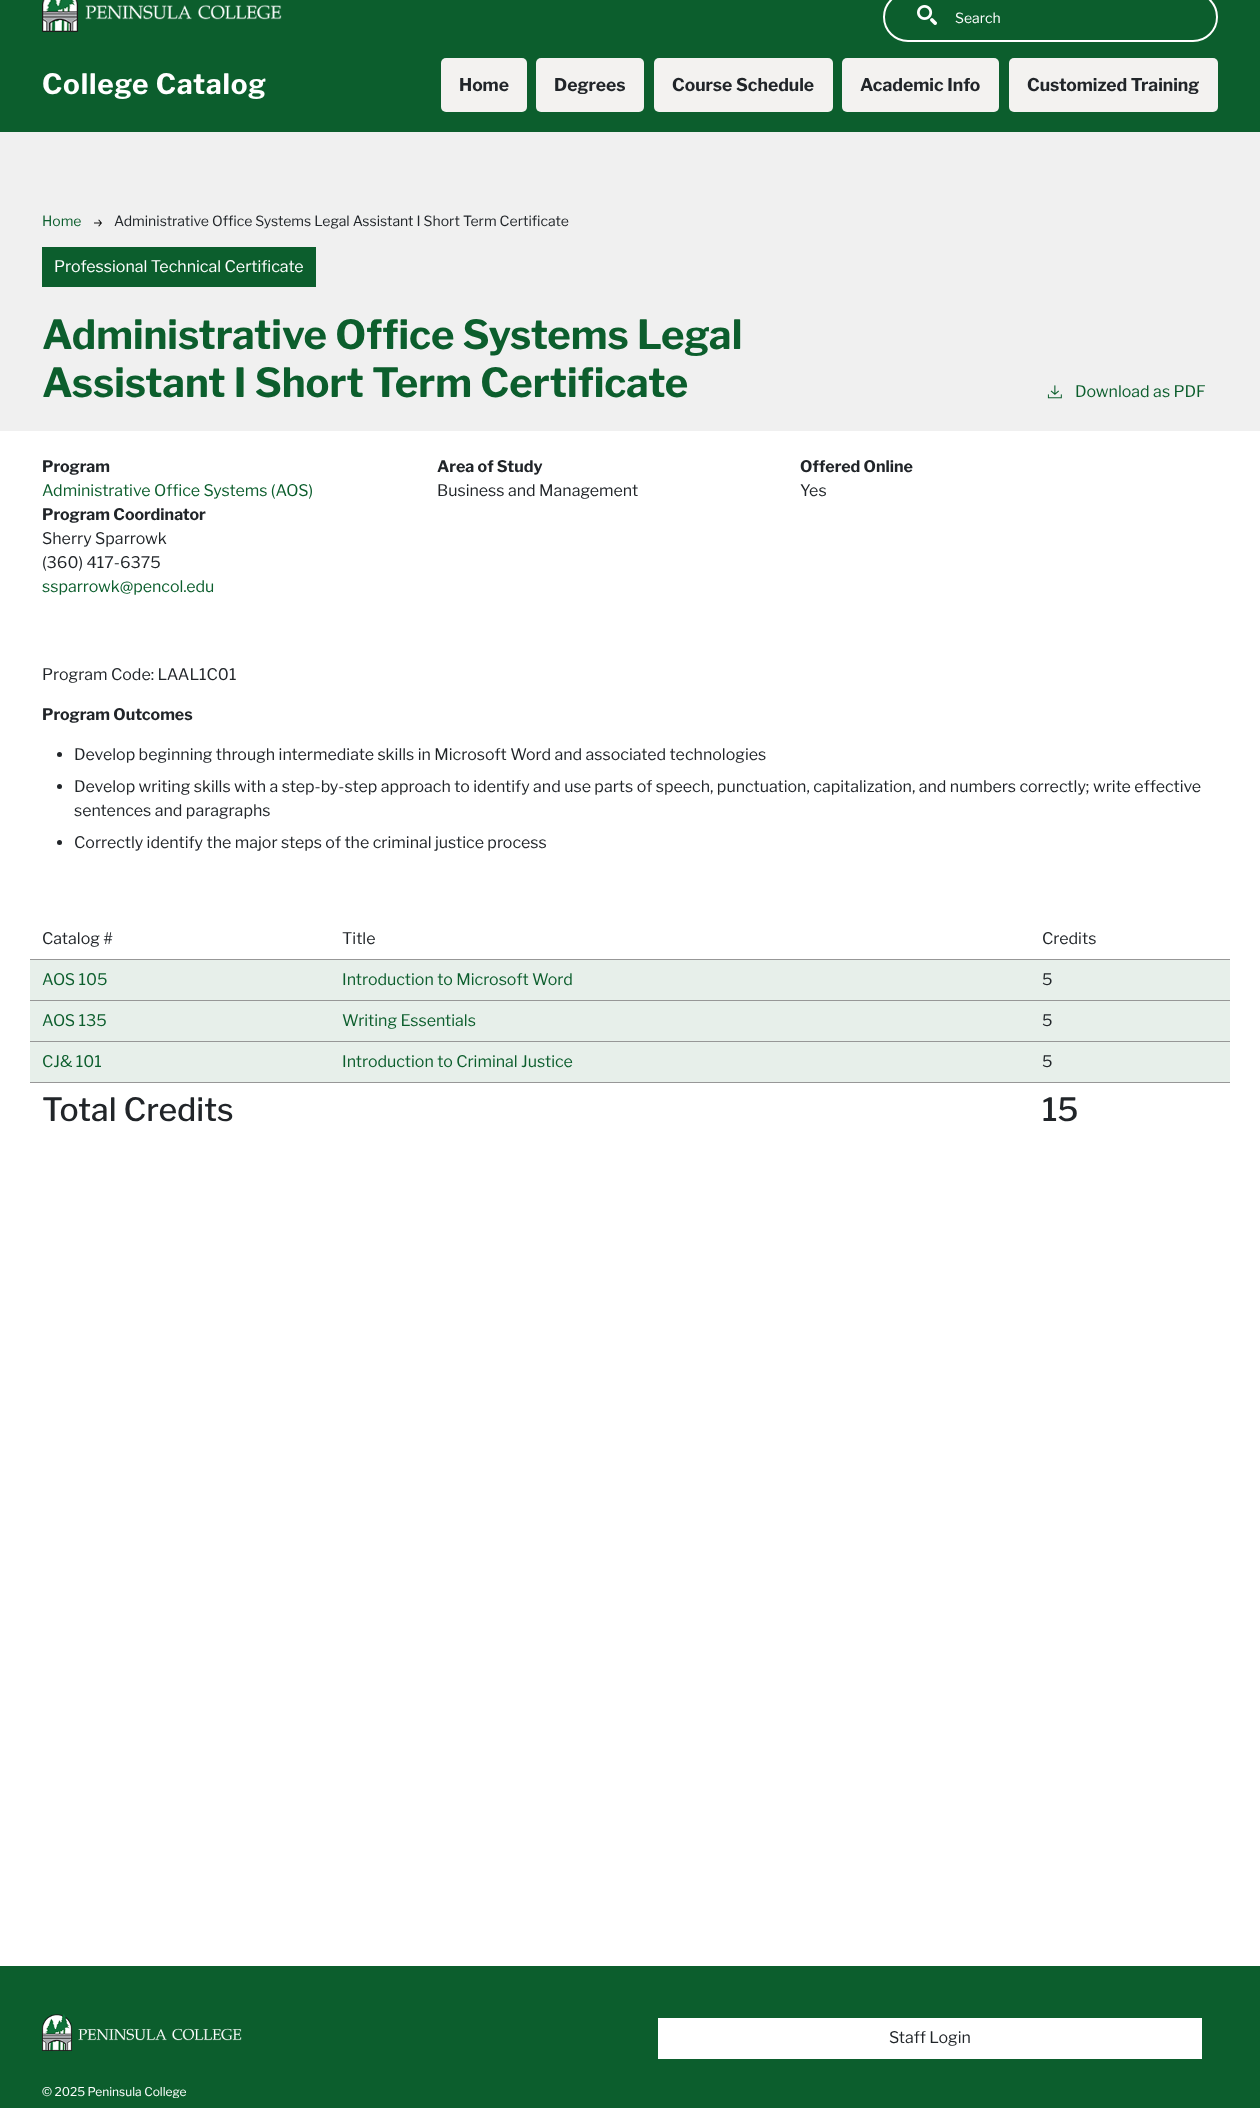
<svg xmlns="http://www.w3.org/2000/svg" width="1260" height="2108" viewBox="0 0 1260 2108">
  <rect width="100%" height="100%" fill="rgb(255,255,255)"/>
  <rect x="0" y="0" width="1260" height="132" fill="rgb(12,94,45)"/>
  <image x="42" y="0" width="240" height="32" href="pic1.png"/>
  <text x="42" y="94" font-family="Libre Franklin" font-size="28" font-weight="bold" letter-spacing="0.8" fill="rgb(255,255,255)">College Catalog</text>
  <rect x="884" y="-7" width="333" height="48" rx="24" fill="none" stroke="rgb(255,255,255)" stroke-width="2"/>
  <image x="917" y="5" width="20" height="20" href="pic2.png"/>
  <text x="955" y="23" font-family="Libre Franklin" font-size="14" fill="rgb(255,255,255)">Search</text>
  <rect x="441" y="58" width="86" height="54" rx="5" fill="rgb(243,242,240)"/>
  <text x="459" y="91" font-family="Libre Franklin" font-size="17.5" font-weight="bold" fill="rgb(33,37,41)">Home</text>
  <rect x="536" y="58" width="108" height="54" rx="5" fill="rgb(243,242,240)"/>
  <text x="554" y="91" font-family="Libre Franklin" font-size="17.5" font-weight="bold" fill="rgb(33,37,41)">Degrees</text>
  <rect x="654" y="58" width="179" height="54" rx="5" fill="rgb(243,242,240)"/>
  <text x="672" y="91" font-family="Libre Franklin" font-size="17.5" font-weight="bold" fill="rgb(33,37,41)">Course Schedule</text>
  <rect x="842" y="58" width="157" height="54" rx="5" fill="rgb(243,242,240)"/>
  <text x="860" y="91" font-family="Libre Franklin" font-size="17.5" font-weight="bold" fill="rgb(33,37,41)">Academic Info</text>
  <rect x="1009" y="58" width="209" height="54" rx="5" fill="rgb(243,242,240)"/>
  <text x="1027" y="91" font-family="Libre Franklin" font-size="17.5" font-weight="bold" fill="rgb(33,37,41)">Customized Training</text>
  <rect x="0" y="132" width="1260" height="299" fill="rgb(240,240,240)"/>
  <text x="42" y="226" font-family="Libre Franklin" font-size="14" fill="rgb(12,94,45)">Home</text>
  <image x="94" y="219" width="8" height="8" href="pic3.png"/>
  <text x="114" y="226" font-family="Libre Franklin" font-size="14" fill="rgb(33,37,41)">Administrative Office Systems Legal Assistant I Short Term Certificate</text>
  <rect x="42" y="247" width="274" height="40" fill="rgb(12,94,45)"/>
  <text x="54" y="272" font-family="Libre Franklin" font-size="16" fill="rgb(255,255,255)">Professional Technical Certificate</text>
  <g font-family="Libre Franklin" font-size="40" font-weight="bold" fill="rgb(12,94,45)">
    <text>
      <tspan x="42" y="349">Administrative Office Systems Legal</tspan>
      <tspan x="42" y="397">Assistant I Short Term Certificate</tspan>
    </text>
  </g>
  <image x="1047" y="385" width="15" height="14" href="pic4.png"/>
  <text x="1075" y="397" font-family="Libre Franklin" font-size="16" fill="rgb(12,94,45)">Download as PDF</text>
  <text x="42" y="472" font-family="Libre Franklin" font-size="16" font-weight="bold" fill="rgb(33,37,41)">Program</text>
  <text x="42" y="496" font-family="Libre Franklin" font-size="16" fill="rgb(12,94,45)">Administrative Office Systems (AOS)</text>
  <text x="437" y="472" font-family="Libre Franklin" font-size="16" font-weight="bold" fill="rgb(33,37,41)">Area of Study</text>
  <text x="437" y="496" font-family="Libre Franklin" font-size="16" fill="rgb(33,37,41)">Business and Management</text>
  <text x="800" y="472" font-family="Libre Franklin" font-size="16" font-weight="bold" fill="rgb(33,37,41)">Offered Online</text>
  <text x="800" y="496" font-family="Libre Franklin" font-size="16" fill="rgb(33,37,41)">Yes</text>
  <text x="42" y="520" font-family="Libre Franklin" font-size="16" font-weight="bold" fill="rgb(33,37,41)">Program Coordinator</text>
  <g font-family="Libre Franklin" font-size="16" fill="rgb(33,37,41)">
    <text>
      <tspan x="42" y="544">Sherry Sparrowk</tspan>
      <tspan x="42" y="568">(360) 417-6375</tspan>
    </text>
  </g>
  <text x="42" y="592" font-family="Libre Franklin" font-size="16" fill="rgb(12,94,45)">ssparrowk@pencol.edu</text>
  <text x="42" y="680" font-family="Libre Franklin" font-size="16" fill="rgb(33,37,41)">Program Code: LAAL1C01</text>
  <text x="42" y="720" font-family="Libre Franklin" font-size="16" font-weight="bold" fill="rgb(33,37,41)">Program Outcomes</text>
  <circle cx="59.5" cy="754.5" r="2.5" fill="rgb(33,37,41)"/>
  <text x="74" y="760" font-family="Libre Franklin" font-size="16" fill="rgb(33,37,41)">Develop beginning through intermediate skills in Microsoft Word and associated technologies</text>
  <circle cx="59.5" cy="786.5" r="2.5" fill="rgb(33,37,41)"/>
  <g font-family="Libre Franklin" font-size="16" fill="rgb(33,37,41)">
    <text>
      <tspan x="74" y="792">Develop writing skills with a step-by-step approach to identify and use parts of speech, punctuation, capitalization, and numbers correctly; write effective</tspan>
      <tspan x="74" y="816">sentences and paragraphs</tspan>
    </text>
  </g>
  <circle cx="59.5" cy="842.5" r="2.5" fill="rgb(33,37,41)"/>
  <text x="74" y="848" font-family="Libre Franklin" font-size="16" fill="rgb(33,37,41)">Correctly identify the major steps of the criminal justice process</text>
  <rect x="30" y="959" width="1200" height="1" fill="rgb(151,151,151)"/>
  <g font-family="Libre Franklin" font-size="16" fill="rgb(33,37,41)">
    <text x="42" y="944">Catalog #</text>
    <text x="342" y="944">Title</text>
    <text x="1042" y="944">Credits</text>
  </g>
  <rect x="30" y="960" width="1200" height="40" fill="rgb(231,239,234)"/>
  <rect x="30" y="1000" width="1200" height="1" fill="rgb(151,151,151)"/>
  <g font-family="Libre Franklin" font-size="16" fill="rgb(12,94,45)">
    <text x="42" y="985">AOS 105</text>
    <text x="342" y="985">Introduction to Microsoft Word</text>
  </g>
  <text x="1042" y="985" font-family="Libre Franklin" font-size="16" fill="rgb(33,37,41)">5</text>
  <rect x="30" y="1001" width="1200" height="40" fill="rgb(231,239,234)"/>
  <rect x="30" y="1041" width="1200" height="1" fill="rgb(151,151,151)"/>
  <g font-family="Libre Franklin" font-size="16" fill="rgb(12,94,45)">
    <text x="42" y="1026">AOS 135</text>
    <text x="342" y="1026">Writing Essentials</text>
  </g>
  <text x="1042" y="1026" font-family="Libre Franklin" font-size="16" fill="rgb(33,37,41)">5</text>
  <rect x="30" y="1042" width="1200" height="40" fill="rgb(231,239,234)"/>
  <rect x="30" y="1082" width="1200" height="1" fill="rgb(151,151,151)"/>
  <g font-family="Libre Franklin" font-size="16" fill="rgb(12,94,45)">
    <text x="42" y="1067">CJ&amp; 101</text>
    <text x="342" y="1067">Introduction to Criminal Justice</text>
  </g>
  <text x="1042" y="1067" font-family="Libre Franklin" font-size="16" fill="rgb(33,37,41)">5</text>
  <g font-family="Libre Franklin" font-size="32" font-weight="500" fill="rgb(33,37,41)">
    <text x="42" y="1121">Total Credits</text>
    <text x="1042" y="1121">15</text>
  </g>
  <rect x="0" y="1966" width="1260" height="142" fill="rgb(12,94,45)"/>
  <image x="42" y="2014" width="200" height="37" href="pic5.png"/>
  <rect x="658" y="2018" width="544" height="41" fill="rgb(255,255,255)"/>
  <text x="889" y="2043" font-family="Libre Franklin" font-size="16" fill="rgb(33,37,41)">Staff Login</text>
  <text x="42" y="2096" font-family="Libre Franklin" font-size="12" fill="rgb(255,255,255)">© 2025 Peninsula College</text>
</svg>
